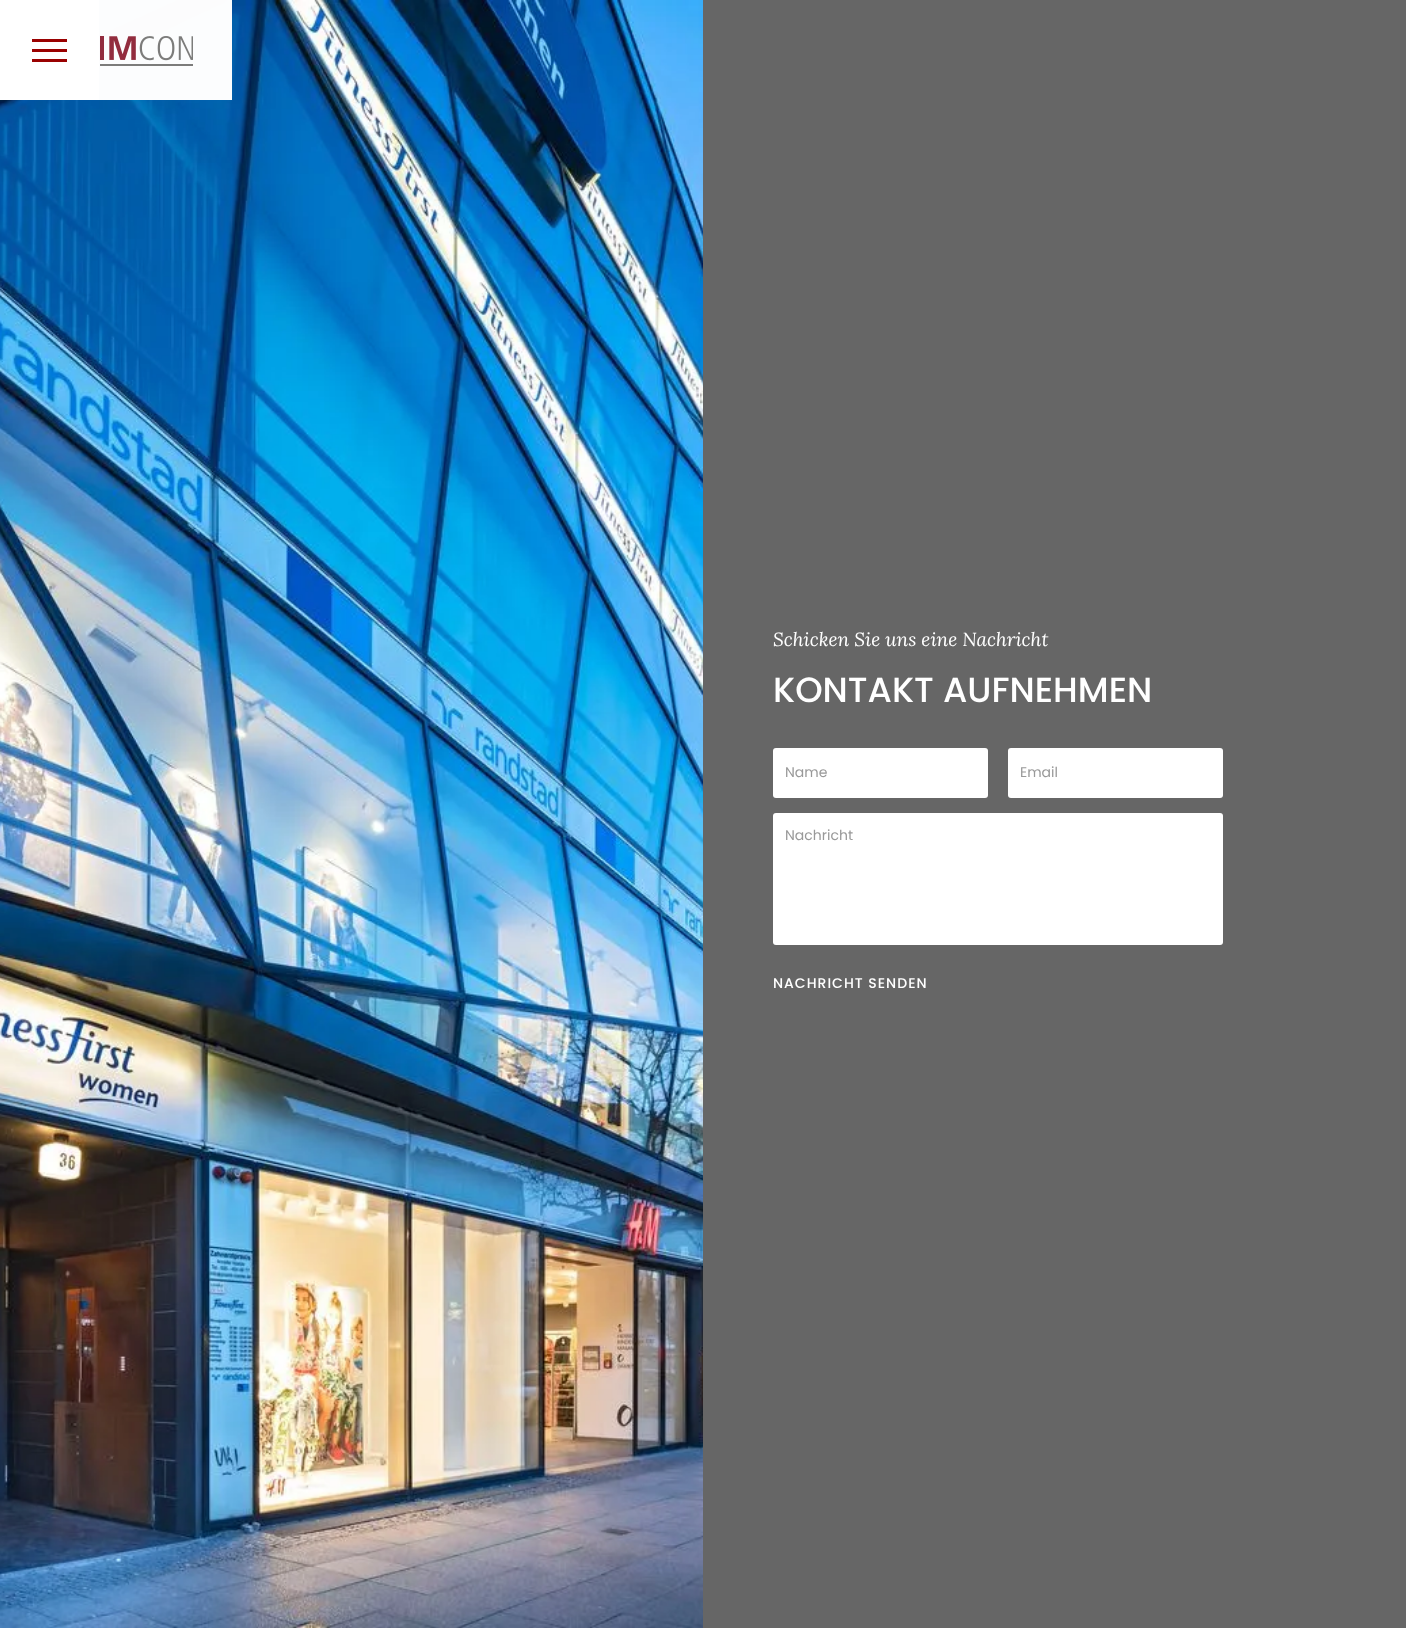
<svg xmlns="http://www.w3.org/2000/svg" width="1406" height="1628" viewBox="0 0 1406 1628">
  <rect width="100%" height="100%" fill="rgb(255,255,255)"/>
  <image x="0" y="0" width="703" height="1628" href="pic2.png"/>
  <rect x="99" y="0" width="133" height="100" fill="rgba(255,255,255,0.99)"/>
  <rect x="0" y="0" width="99" height="100" fill="rgb(255,255,255)"/>
  <rect x="32" y="39" width="35" height="3" fill="rgb(154,1,1)"/>
  <rect x="32" y="49" width="35" height="3" fill="rgb(154,1,1)"/>
  <rect x="32" y="59" width="35" height="3" fill="rgb(154,1,1)"/>
  <image x="100" y="36" width="93" height="30" href="pic1.png"/>
  <rect x="703" y="0" width="703" height="1628" fill="rgb(102,102,102)"/>
  <text x="773" y="646" font-family="Lora" font-size="19" font-style="italic" fill="rgb(255,255,255)">Schicken Sie uns eine Nachricht</text>
  <text x="773" y="702" font-family="Poppins" font-size="35" font-weight="500" fill="rgb(255,255,255)">KONTAKT AUFNEHMEN</text>
  <rect x="773" y="748" width="215" height="50" rx="3" fill="rgb(255,255,255)"/>
  <text x="785" y="777" font-family="Poppins" font-size="14" fill="rgb(153,153,153)">Name</text>
  <rect x="1008" y="748" width="215" height="50" rx="3" fill="rgb(255,255,255)"/>
  <text x="1020" y="777" font-family="Poppins" font-size="14" fill="rgb(153,153,153)">Email</text>
  <rect x="773" y="813" width="450" height="132" rx="3" fill="rgb(255,255,255)"/>
  <text x="785" y="840" font-family="Poppins" font-size="14" fill="rgb(153,153,153)">Nachricht</text>
  <text x="773" y="988" font-family="Poppins" font-size="14" font-weight="500" letter-spacing="1" fill="rgb(255,255,255)">NACHRICHT SENDEN</text>
</svg>
